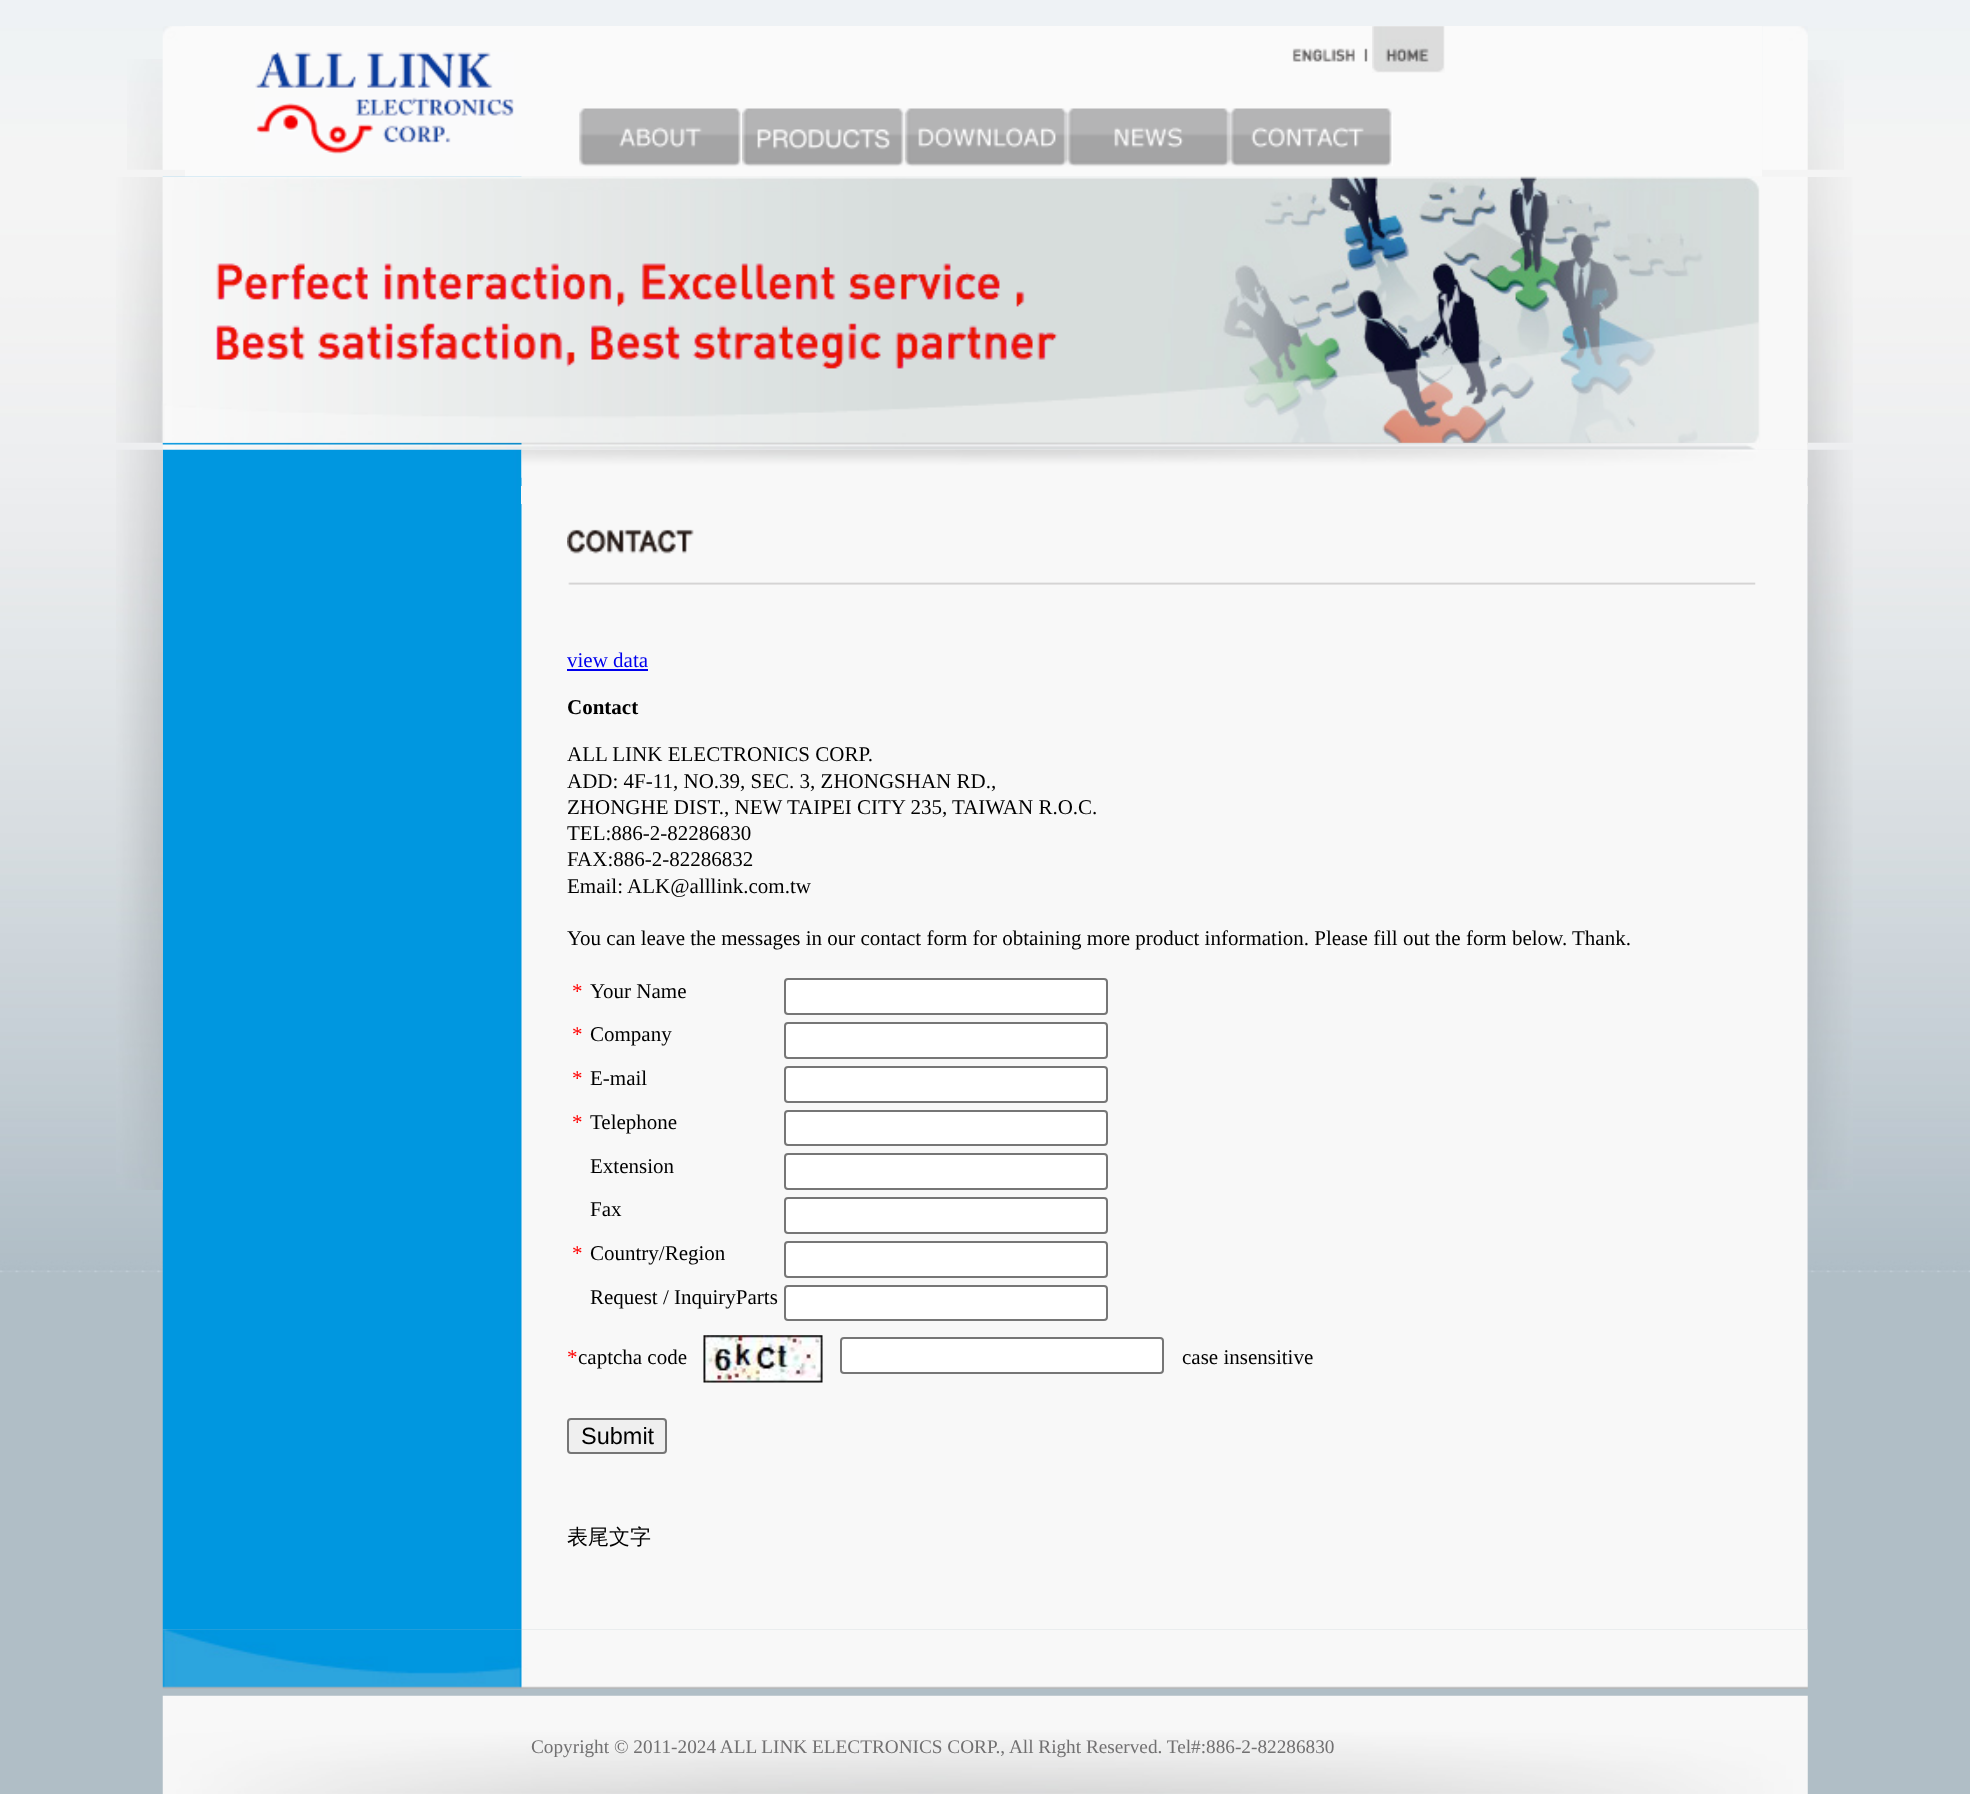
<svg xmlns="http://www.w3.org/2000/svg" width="1970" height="1794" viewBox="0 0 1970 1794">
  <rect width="100%" height="100%" fill="rgb(176,190,198)"/>
  <image x="0" y="0" width="1970" height="1273" href="pic1.png"/>
  <image x="127" y="59" width="36" height="111" href="pic4.png"/>
  <image x="162" y="26" width="23" height="144" href="pic2.png"/>
  <rect x="185" y="26" width="1577" height="151" fill="rgb(250,250,250)"/>
  <image x="255" y="52" width="259" height="102" href="pic3.png"/>
  <image x="1292" y="48" width="63" height="14" href="pic5.png"/>
  <image x="1364" y="48" width="4" height="14" href="pic6.png"/>
  <image x="1372" y="26" width="73" height="47" href="pic7.png"/>
  <image x="579" y="108" width="162" height="59" href="pic8.png"/>
  <image x="742" y="108" width="162" height="59" href="pic9.png"/>
  <image x="904" y="108" width="164" height="59" href="pic10.png"/>
  <image x="1067" y="108" width="164" height="59" href="pic11.png"/>
  <image x="1230" y="108" width="163" height="59" href="pic12.png"/>
  <image x="1762" y="26" width="46" height="144" href="pic13.png"/>
  <image x="1807" y="60" width="37" height="110" href="pic14.png"/>
  <image x="162" y="176" width="1646" height="274" href="pic16.png"/>
  <image x="116" y="177" width="47" height="266" href="pic15.png"/>
  <image x="162" y="176" width="1646" height="267" href="pic17.png"/>
  <image x="1807" y="177" width="46" height="266" href="pic18.png"/>
  <image x="162" y="449" width="1646" height="1181" href="pic20.png"/>
  <image x="116" y="449" width="47" height="741" href="pic19.png"/>
  <image x="521" y="449" width="1287" height="29" href="pic21.png"/>
  <rect x="521" y="486" width="1287" height="18" fill="rgb(248,248,248)"/>
  <image x="567" y="529" width="127" height="25" href="pic22.png"/>
  <image x="568" y="582" width="1188" height="3" href="pic23.png"/>
  <text x="567" y="667" font-family="Liberation Serif" font-size="21" fill="rgb(0,0,238)">view data</text>
  <rect x="567" y="669" width="81" height="2" fill="rgb(0,0,238)"/>
  <text x="567" y="714" font-family="Liberation Serif" font-size="21" font-weight="bold" fill="rgb(0,0,0)">Contact</text>
  <g font-family="Liberation Serif" font-size="21" fill="rgb(0,0,0)">
    <text>
      <tspan x="567" y="761">ALL LINK ELECTRONICS CORP.</tspan>
      <tspan x="567" y="788">ADD: 4F-11, NO.39, SEC. 3, ZHONGSHAN RD.,</tspan>
      <tspan x="567" y="814">ZHONGHE DIST., NEW TAIPEI CITY 235, TAIWAN R.O.C.</tspan>
      <tspan x="567" y="840">TEL:886-2-82286830</tspan>
      <tspan x="567" y="866">FAX:886-2-82286832</tspan>
      <tspan x="567" y="893">Email: ALK@alllink.com.tw</tspan>
    </text>
    <text x="567" y="945">You can leave the messages in our contact form for obtaining more product information. Please fill out the form below. Thank.</text>
  </g>
  <text x="572" y="998" font-family="Liberation Serif" font-size="21" fill="rgb(255,0,0)">*</text>
  <text x="590" y="998" font-family="Liberation Serif" font-size="21" fill="rgb(0,0,0)">Your Name</text>
  <rect x="785" y="979" width="322" height="35" rx="3" fill="rgb(255,255,255)" stroke="rgb(118,118,118)" stroke-width="2"/>
  <text x="572" y="1041" font-family="Liberation Serif" font-size="21" fill="rgb(255,0,0)">*</text>
  <text x="590" y="1041" font-family="Liberation Serif" font-size="21" fill="rgb(0,0,0)">Company</text>
  <rect x="785" y="1023" width="322" height="35" rx="3" fill="rgb(255,255,255)" stroke="rgb(118,118,118)" stroke-width="2"/>
  <text x="572" y="1085" font-family="Liberation Serif" font-size="21" fill="rgb(255,0,0)">*</text>
  <text x="590" y="1085" font-family="Liberation Serif" font-size="21" fill="rgb(0,0,0)">E-mail</text>
  <rect x="785" y="1067" width="322" height="35" rx="3" fill="rgb(255,255,255)" stroke="rgb(118,118,118)" stroke-width="2"/>
  <text x="572" y="1129" font-family="Liberation Serif" font-size="21" fill="rgb(255,0,0)">*</text>
  <text x="590" y="1129" font-family="Liberation Serif" font-size="21" fill="rgb(0,0,0)">Telephone</text>
  <rect x="785" y="1111" width="322" height="34" rx="3" fill="rgb(255,255,255)" stroke="rgb(118,118,118)" stroke-width="2"/>
  <text x="590" y="1173" font-family="Liberation Serif" font-size="21" fill="rgb(0,0,0)">Extension</text>
  <rect x="785" y="1154" width="322" height="35" rx="3" fill="rgb(255,255,255)" stroke="rgb(118,118,118)" stroke-width="2"/>
  <text x="590" y="1216" font-family="Liberation Serif" font-size="21" fill="rgb(0,0,0)">Fax</text>
  <rect x="785" y="1198" width="322" height="35" rx="3" fill="rgb(255,255,255)" stroke="rgb(118,118,118)" stroke-width="2"/>
  <text x="572" y="1260" font-family="Liberation Serif" font-size="21" fill="rgb(255,0,0)">*</text>
  <text x="590" y="1260" font-family="Liberation Serif" font-size="21" fill="rgb(0,0,0)">Country/Region</text>
  <rect x="785" y="1242" width="322" height="35" rx="3" fill="rgb(255,255,255)" stroke="rgb(118,118,118)" stroke-width="2"/>
  <text x="590" y="1304" font-family="Liberation Serif" font-size="21" fill="rgb(0,0,0)">Request / InquiryParts</text>
  <rect x="785" y="1286" width="322" height="34" rx="3" fill="rgb(255,255,255)" stroke="rgb(118,118,118)" stroke-width="2"/>
  <text x="567" y="1364" font-family="Liberation Serif" font-size="21" fill="rgb(255,0,0)">*</text>
  <text x="578" y="1364" font-family="Liberation Serif" font-size="21" fill="rgb(0,0,0)">captcha code</text>
  <image x="703" y="1335" width="120" height="48" href="pic24.png"/>
  <rect x="841" y="1338" width="322" height="35" rx="3" fill="rgb(255,255,255)" stroke="rgb(118,118,118)" stroke-width="2"/>
  <text x="1182" y="1364" font-family="Liberation Serif" font-size="21" fill="rgb(0,0,0)">case insensitive</text>
  <rect x="568" y="1419" width="98" height="34" rx="3" fill="rgb(239,239,239)" stroke="rgb(118,118,118)" stroke-width="2"/>
  <text x="581" y="1444" font-family="Liberation Sans" font-size="23.5" fill="rgb(0,0,0)">Submit</text>
  <text x="567" y="1544" font-family="WenQuanYi Zen Hei" font-size="21" font-weight="500" fill="rgb(0,0,0)">表尾文字</text>
  <image x="1807" y="449" width="46" height="741" href="pic25.png"/>
  <image x="162" y="1629" width="1646" height="60" href="pic26.png"/>
  <image x="162" y="1695" width="1646" height="99" href="pic27.png"/>
  <text x="531" y="1753" font-family="Liberation Serif" font-size="19.25" fill="rgb(113,112,113)">Copyright © 2011-2024 ALL LINK ELECTRONICS CORP., All Right Reserved. Tel#:886-2-82286830</text>
</svg>
